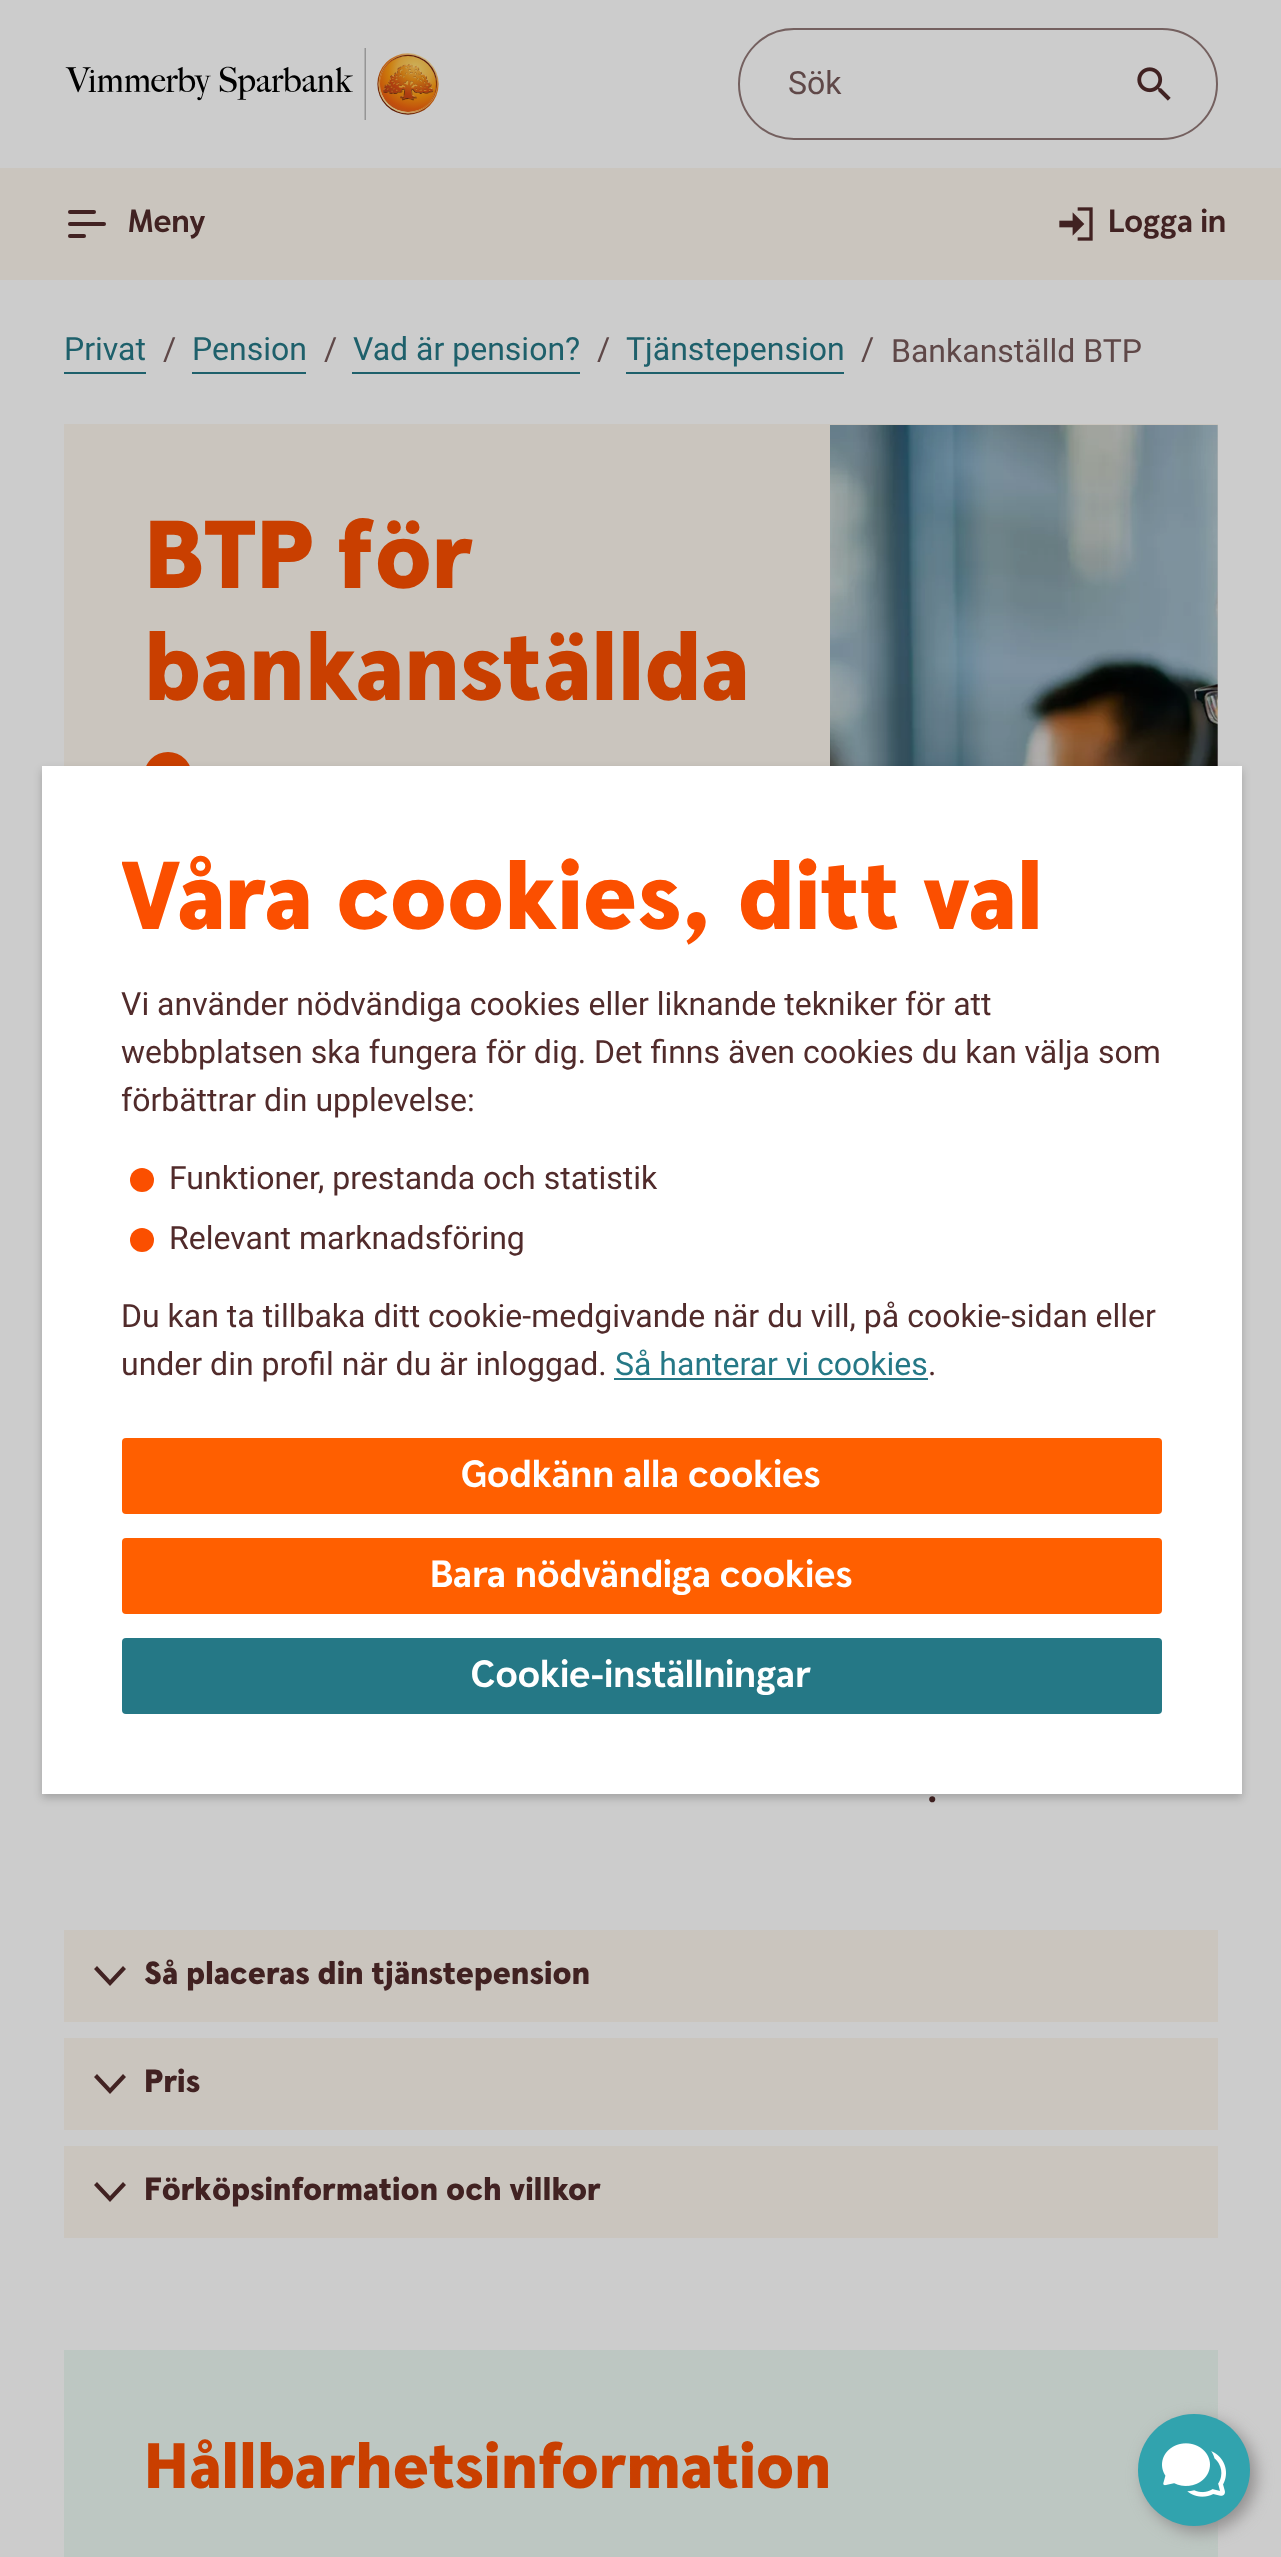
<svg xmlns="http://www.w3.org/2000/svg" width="1281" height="2557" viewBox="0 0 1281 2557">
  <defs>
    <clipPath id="clip1"><rect x="122" y="846" width="1040" height="544"/></clipPath>
  </defs>
  <rect width="100%" height="100%" fill="rgb(204,204,204)"/>
  <image x="65" y="48" width="374" height="72" href="pic1.png"/>
  <rect x="739" y="29" width="478" height="110" rx="55" fill="none" stroke="rgb(116,96,95)" stroke-width="2"/>
  <text x="788" y="94" font-family="Roboto" font-size="32" fill="rgb(95,72,72)">Sök</text>
  <image x="1137" y="67" width="34" height="34" href="pic2.png"/>
  <rect x="0" y="168" width="1281" height="112" fill="rgb(202,197,190)"/>
  <rect x="68" y="210" width="28" height="4" rx="2" fill="rgb(65,34,34)"/>
  <rect x="68" y="222" width="38" height="4" rx="2" fill="rgb(65,34,34)"/>
  <rect x="68" y="234" width="18" height="4" rx="2" fill="rgb(65,34,34)"/>
  <text x="128" y="232" font-family="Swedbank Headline" font-size="32" font-weight="bold" fill="rgb(65,34,34)">Meny</text>
  <image x="1059" y="207" width="34" height="34" href="pic3.png"/>
  <text x="1108" y="232" font-family="Swedbank Headline" font-size="32" font-weight="bold" fill="rgb(65,34,34)">Logga in</text>
  <text x="64" y="360" font-family="Roboto" font-size="32" fill="rgb(30,96,107)">Privat</text>
  <rect x="64" y="372" width="82" height="2" fill="rgb(30,96,107)"/>
  <text x="163" y="360" font-family="Roboto" font-size="32" fill="rgb(95,72,72)">/</text>
  <text x="192" y="360" font-family="Roboto" font-size="32" fill="rgb(30,96,107)">Pension</text>
  <rect x="192" y="372" width="114" height="2" fill="rgb(30,96,107)"/>
  <text x="324" y="360" font-family="Roboto" font-size="32" fill="rgb(95,72,72)">/</text>
  <text x="353" y="360" font-family="Roboto" font-size="32" fill="rgb(30,96,107)">Vad är pension?</text>
  <rect x="352" y="372" width="228" height="2" fill="rgb(30,96,107)"/>
  <text x="597" y="360" font-family="Roboto" font-size="32" fill="rgb(95,72,72)">/</text>
  <text x="626" y="360" font-family="Roboto" font-size="32" fill="rgb(30,96,107)">Tjänstepension</text>
  <rect x="626" y="372" width="218" height="2" fill="rgb(30,96,107)"/>
  <g font-family="Roboto" font-size="32" fill="rgb(95,72,72)">
    <text x="861" y="360">/</text>
    <text x="891" y="362">Bankanställd BTP</text>
  </g>
  <rect x="64" y="424" width="1154" height="342" fill="rgb(202,197,190)"/>
  <g font-family="Swedbank Headline" font-size="96" font-weight="900" fill="rgb(201,63,0)">
    <text>
      <tspan x="144" y="588">BTP för</tspan>
      <tspan x="144" y="700">bankanställda</tspan>
    </text>
  </g>
  <circle cx="168" cy="776" r="24" fill="rgb(201,63,0)"/>
  <image x="830" y="425" width="388" height="341" href="pic4.png"/>
  <text x="927" y="1802" font-family="Swedbank Headline" font-size="36" font-weight="bold" fill="rgb(65,34,34)">.</text>
  <rect x="64" y="1930" width="1154" height="92" fill="rgb(202,197,190)"/>
  <path d="M110 1986L94 1969L97 1966L110 1980L123 1966L126 1969Z" fill="rgb(65,34,34)"/>
  <text x="144" y="1984" font-family="Swedbank Headline" font-size="32" font-weight="900" fill="rgb(65,34,34)">Så placeras din tjänstepension</text>
  <rect x="64" y="2038" width="1154" height="92" fill="rgb(202,197,190)"/>
  <path d="M110 2094L94 2077L97 2074L110 2088L123 2074L126 2077Z" fill="rgb(65,34,34)"/>
  <text x="144" y="2092" font-family="Swedbank Headline" font-size="32" font-weight="900" fill="rgb(65,34,34)">Pris</text>
  <rect x="64" y="2146" width="1154" height="92" fill="rgb(202,197,190)"/>
  <path d="M110 2202L94 2185L97 2182L110 2196L123 2182L126 2185Z" fill="rgb(65,34,34)"/>
  <text x="144" y="2200" font-family="Swedbank Headline" font-size="32" font-weight="900" fill="rgb(65,34,34)">Förköpsinformation och villkor</text>
  <rect x="64" y="2350" width="1154" height="207" fill="rgb(189,199,194)"/>
  <text x="144" y="2488" font-family="Swedbank Headline" font-size="64" font-weight="900" fill="rgb(201,63,0)">Hållbarhetsinformation</text>
  <rect x="42" y="770" width="1200" height="1028" fill="rgba(0,0,0,0.2)" filter="blur(4px)"/>
  <rect x="42" y="766" width="1200" height="1028" fill="rgb(255,255,255)"/>
  <g clip-path="url(#clip1)">
    <text x="121" y="929" font-family="Swedbank Headline" font-size="96" font-weight="900" fill="rgb(251,79,0)">Våra cookies, ditt val</text>
  </g>
  <g font-family="Roboto" font-size="32" fill="rgb(81,43,43)">
    <text>
      <tspan x="121" y="1015">Vi använder nödvändiga cookies eller liknande tekniker för att</tspan>
      <tspan x="121" y="1063">webbplatsen ska fungera för dig. Det finns även cookies du kan välja som</tspan>
      <tspan x="121" y="1111">förbättrar din upplevelse:</tspan>
    </text>
  </g>
  <circle cx="142" cy="1180" r="12" fill="rgb(251,79,0)"/>
  <text x="169" y="1189" font-family="Roboto" font-size="32" fill="rgb(81,43,43)">Funktioner, prestanda och statistik</text>
  <circle cx="142" cy="1240" r="12" fill="rgb(251,79,0)"/>
  <g font-family="Roboto" font-size="32" fill="rgb(81,43,43)">
    <text x="169" y="1249">Relevant marknadsföring</text>
    <text>
      <tspan x="121" y="1327">Du kan ta tillbaka ditt cookie-medgivande när du vill, på cookie-sidan eller</tspan>
      <tspan x="121" y="1375">under din profil när du är inloggad.</tspan>
    </text>
  </g>
  <text x="615" y="1375" font-family="Roboto" font-size="32" fill="rgb(37,120,134)">Så hanterar vi cookies</text>
  <rect x="614" y="1378" width="314" height="2" fill="rgb(37,120,134)"/>
  <text x="928" y="1375" font-family="Roboto" font-size="32" fill="rgb(81,43,43)">.</text>
  <rect x="122" y="1438" width="1040" height="76" rx="4" fill="rgb(255,95,0)"/>
  <text x="461" y="1487" font-family="Swedbank Headline" font-size="38" font-weight="bold" fill="rgb(255,255,255)">Godkänn alla cookies</text>
  <rect x="122" y="1538" width="1040" height="76" rx="4" fill="rgb(255,95,0)"/>
  <text x="430" y="1587" font-family="Swedbank Headline" font-size="38" font-weight="bold" fill="rgb(255,255,255)">Bara nödvändiga cookies</text>
  <rect x="122" y="1638" width="1040" height="76" rx="4" fill="rgb(37,120,134)"/>
  <text x="471" y="1687" font-family="Swedbank Headline" font-size="38" font-weight="bold" fill="rgb(255,255,255)">Cookie-inställningar</text>
  <rect x="1144" y="2420" width="112" height="112" rx="56" fill="rgb(144,142,142)" filter="blur(8px)"/>
  <circle cx="1194" cy="2470" r="56" fill="rgb(49,163,174)"/>
  <image x="1162" y="2443" width="64" height="54" href="pic5.png"/>
</svg>
